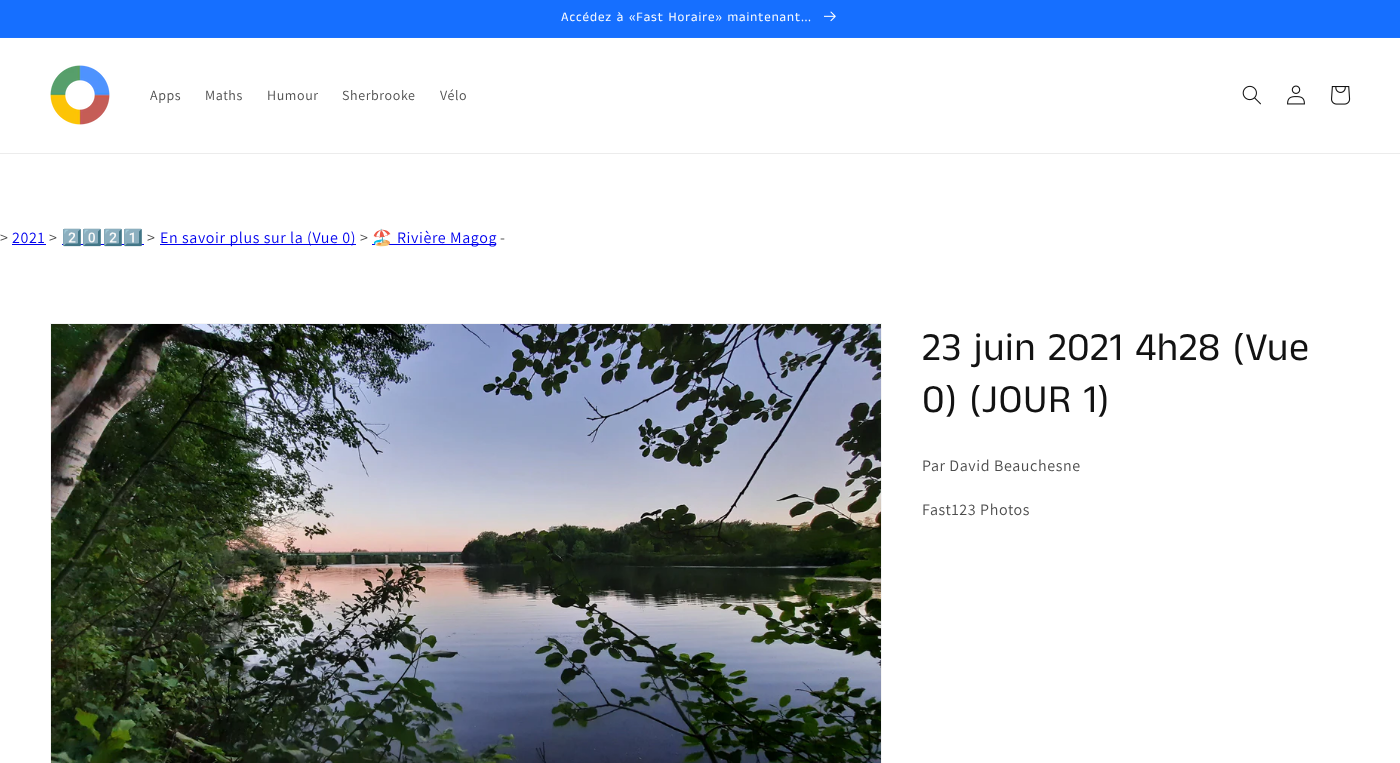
<svg xmlns="http://www.w3.org/2000/svg" width="1400" height="763" viewBox="0 0 1400 763">
  <rect width="100%" height="100%" fill="rgb(255,255,255)"/>
  <rect x="0" y="37" width="1400" height="1" fill="rgb(27,114,255)"/>
  <rect x="0" y="0" width="1400" height="37" fill="rgb(22,111,255)"/>
  <text x="561" y="21" font-family="Anek Tamil" font-size="13" letter-spacing="1" fill="rgb(255,255,255)">Accédez à «Fast Horaire» maintenant...</text>
  <image x="824" y="11" width="12" height="11" href="pic1.png"/>
  <rect x="0" y="153" width="1400" height="1" fill="rgb(236,236,236)"/>
  <image x="50" y="65" width="60" height="60" href="pic2.png"/>
  <g font-family="Assistant" font-size="14" letter-spacing="0.6" fill="rgb(77,77,77)">
    <text x="150" y="100">Apps</text>
    <text x="205" y="100">Maths</text>
    <text x="267" y="100">Humour</text>
    <text x="342" y="100">Sherbrooke</text>
    <text x="440" y="100">Vélo</text>
  </g>
  <image x="1242" y="85" width="19" height="20" href="pic3.png"/>
  <image x="1287" y="85" width="18" height="20" href="pic4.png"/>
  <image x="1331" y="86" width="20" height="19" href="pic5.png"/>
  <text x="0" y="243" font-family="Assistant" font-size="16" letter-spacing="0.6" fill="rgb(77,77,77)">&gt;</text>
  <text x="12" y="243" font-family="Assistant" font-size="16" letter-spacing="0.6" fill="rgb(0,0,238)">2021</text>
  <rect x="12" y="244" width="34" height="1" fill="rgb(0,0,238)"/>
  <text x="49" y="243" font-family="Assistant" font-size="16" letter-spacing="0.6" fill="rgb(77,77,77)">&gt;</text>
  <rect x="62" y="244" width="82" height="1" fill="rgb(0,0,238)"/>
  <text x="62" y="243" font-family="Noto Color Emoji" font-size="16" letter-spacing="0.6" fill="rgb(0,0,238)">2️⃣0️⃣2️⃣1️⃣</text>
  <text x="147" y="243" font-family="Assistant" font-size="16" letter-spacing="0.6" fill="rgb(77,77,77)">&gt;</text>
  <rect x="160" y="244" width="196" height="1" fill="rgb(0,0,238)"/>
  <text x="160" y="243" font-family="Assistant" font-size="16" letter-spacing="0.6" fill="rgb(0,0,238)">En savoir plus sur la (Vue 0)</text>
  <text x="360" y="243" font-family="Assistant" font-size="16" letter-spacing="0.6" fill="rgb(77,77,77)">&gt;</text>
  <rect x="372" y="244" width="124" height="1" fill="rgb(0,0,238)"/>
  <text x="372" y="243" font-family="Noto Color Emoji" font-size="16" letter-spacing="0.6" fill="rgb(0,0,238)">🏖️</text>
  <text x="397" y="243" font-family="Assistant" font-size="16" letter-spacing="0.6" fill="rgb(0,0,238)">Rivière Magog</text>
  <text x="500" y="243" font-family="Assistant" font-size="16" letter-spacing="0.6" fill="rgb(77,77,77)">-</text>
  <rect x="50.5" y="323.5" width="831" height="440" fill="none" stroke="rgb(246,246,246)"/>
  <image x="51" y="324" width="830" height="439" href="pic6.png"/>
  <g font-family="Anek Tamil" font-size="40" letter-spacing="0.6" fill="rgb(18,18,18)">
    <text>
      <tspan x="922" y="360">23 juin 2021 4h28 (Vue</tspan>
      <tspan x="922" y="412">0) (JOUR 1)</tspan>
    </text>
  </g>
  <g font-family="Assistant" font-size="16" letter-spacing="0.6" fill="rgb(77,77,77)">
    <text x="922" y="471">Par David Beauchesne</text>
    <text x="922" y="515">Fast123 Photos</text>
  </g>
</svg>
